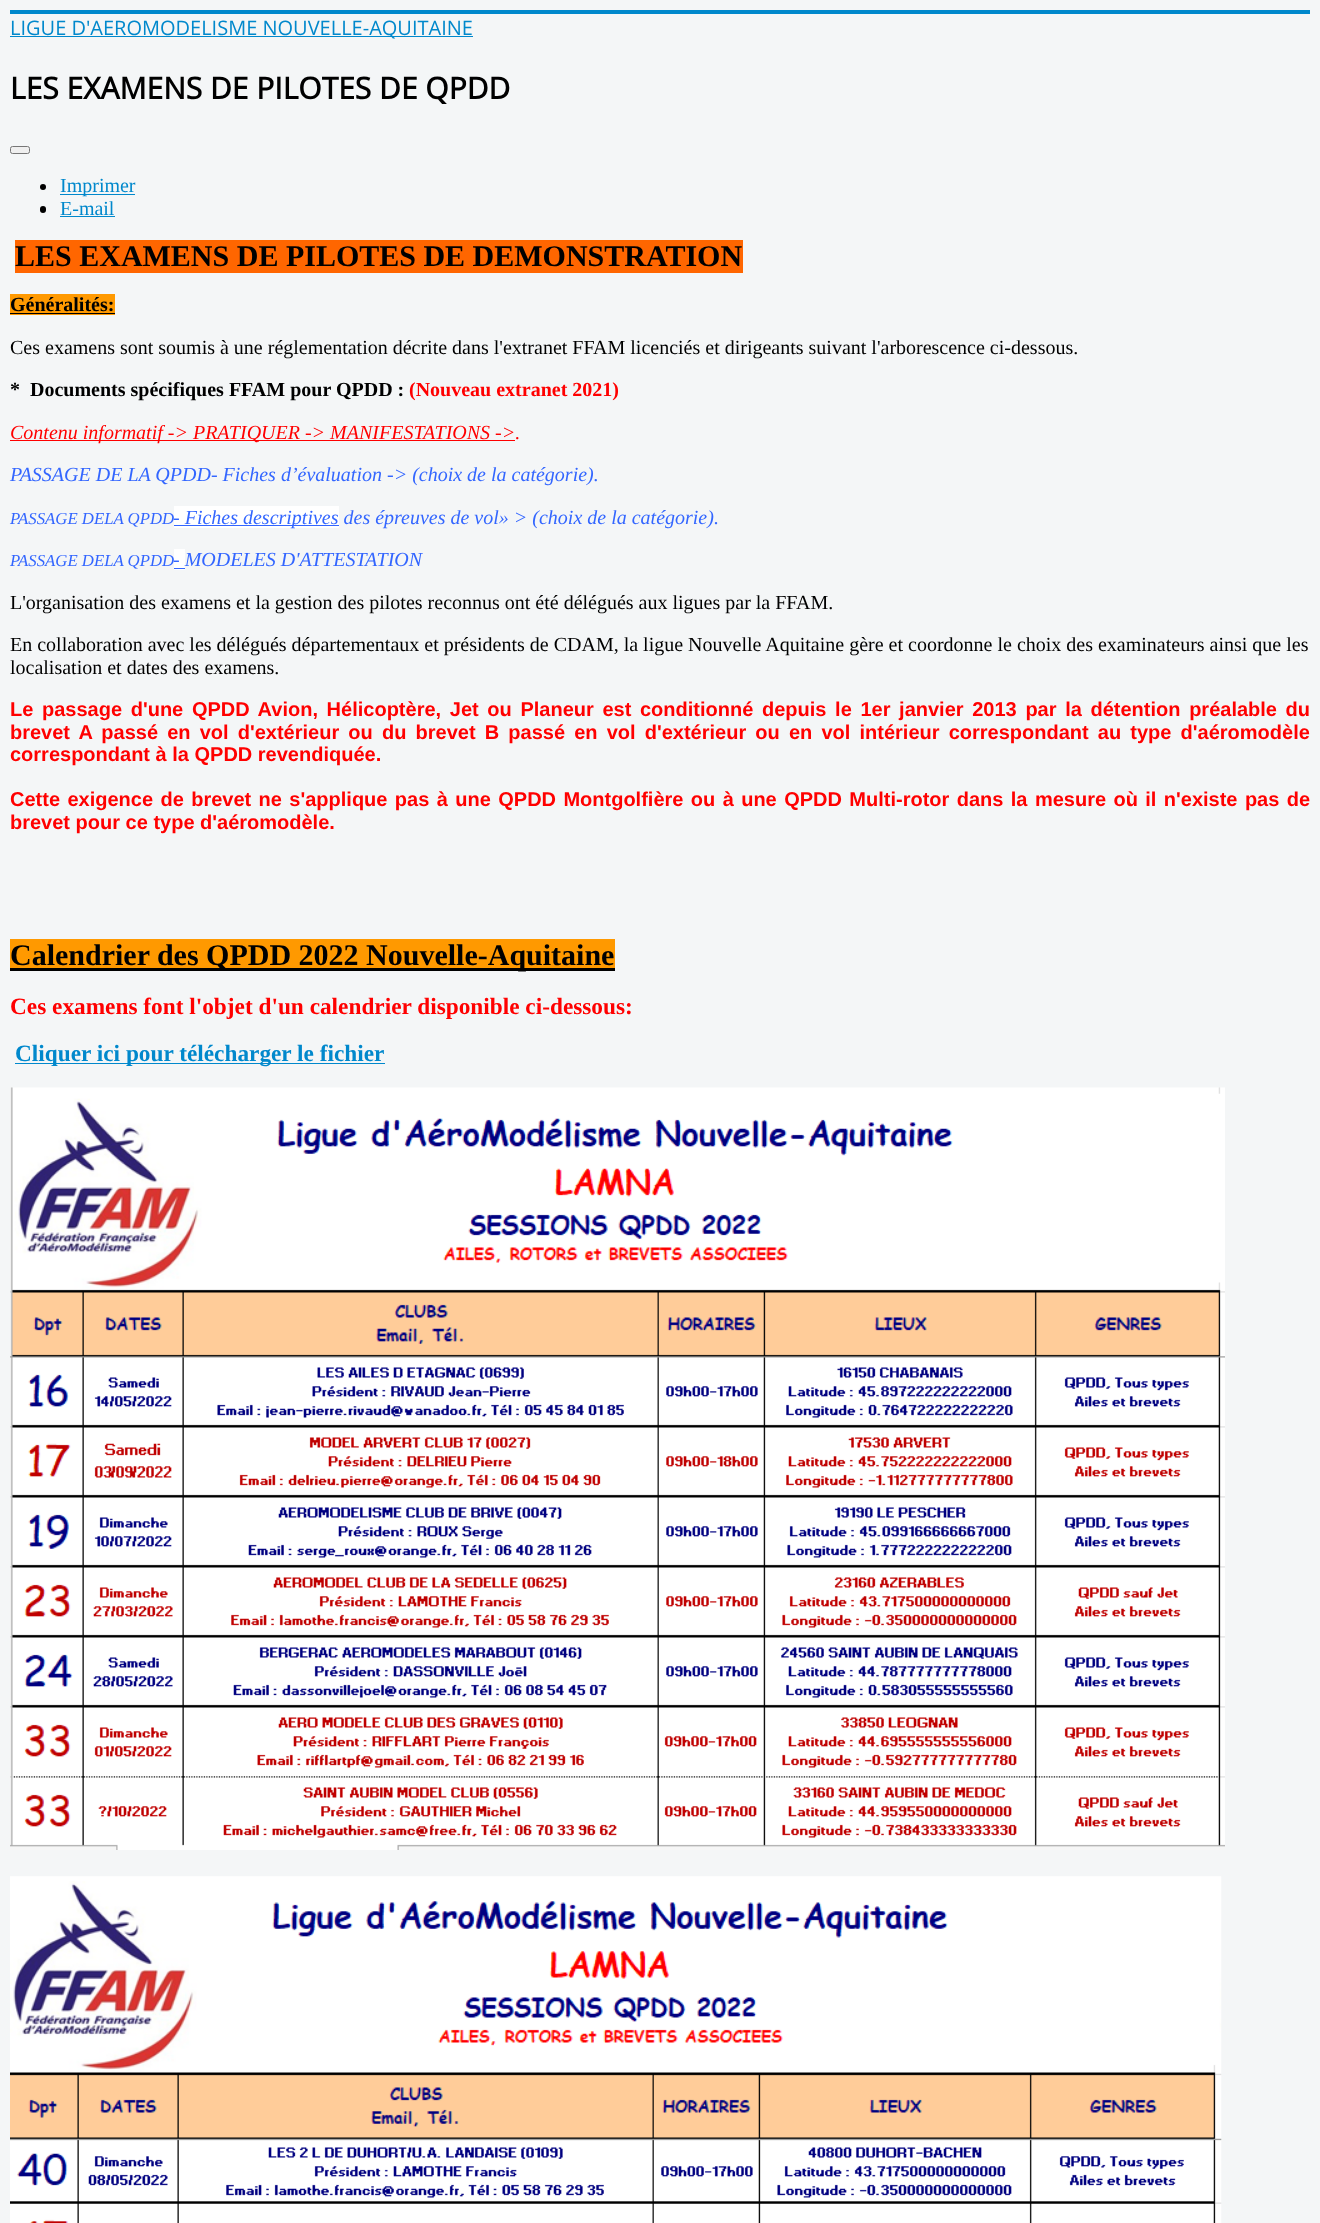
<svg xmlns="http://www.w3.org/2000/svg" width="1320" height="2223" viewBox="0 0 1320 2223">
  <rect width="100%" height="100%" fill="rgb(244,246,247)"/>
  <rect x="10" y="10" width="1300" height="4" fill="rgb(0,136,204)"/>
  <rect x="10" y="36" width="463" height="1" fill="rgb(0,136,204)"/>
  <text x="10" y="35" font-family="Open Sans" font-size="20" fill="rgb(0,136,204)">LIGUE D'AEROMODELISME NOUVELLE-AQUITAINE</text>
  <text x="10" y="99" font-family="Open Sans" font-size="30" font-weight="bold" fill="rgb(0,0,0)">LES EXAMENS DE PILOTES DE QPDD</text>
  <rect x="10.5" y="146.5" width="19" height="7" rx="2" fill="rgb(239,239,239)" stroke="rgb(118,118,118)"/>
  <circle cx="43" cy="187" r="3" fill="rgb(0,0,0)"/>
  <rect x="60" y="194" width="75" height="1" fill="rgb(0,136,204)"/>
  <text x="60" y="192" font-family="Liberation Serif" font-size="20" fill="rgb(0,136,204)">Imprimer</text>
  <rect x="40" y="206" width="6" height="7" rx="3" fill="rgb(0,0,0)"/>
  <text x="60" y="215" font-family="Liberation Serif" font-size="20" fill="rgb(0,136,204)">E-mail</text>
  <rect x="60" y="216" width="55" height="1" fill="rgb(0,136,204)"/>
  <rect x="15" y="240" width="728" height="33" fill="rgb(255,102,0)"/>
  <text x="15" y="266" font-family="Liberation Serif" font-size="30" font-weight="bold" fill="rgb(0,0,0)">LES EXAMENS DE PILOTES DE DEMONSTRATION</text>
  <rect x="10" y="294" width="105" height="21" fill="rgb(255,153,0)"/>
  <text x="10" y="311" font-family="Liberation Serif" font-size="20" font-weight="bold" fill="rgb(0,0,0)">Généralités:</text>
  <rect x="10" y="313" width="105" height="1" fill="rgb(0,0,0)"/>
  <text x="10" y="354" font-family="Liberation Serif" font-size="20" fill="rgb(0,0,0)">Ces examens sont soumis à une réglementation décrite dans l'extranet FFAM licenciés et dirigeants suivant l'arborescence ci-dessous.</text>
  <text x="10" y="396" font-family="Liberation Serif" font-size="20" font-weight="bold" fill="rgb(0,0,0)" xml:space="preserve">*  Documents spécifiques FFAM pour QPDD :</text>
  <text x="409" y="396" font-family="Liberation Serif" font-size="20" font-weight="bold" fill="rgb(255,0,0)">(Nouveau extranet 2021)</text>
  <rect x="10" y="440" width="505" height="1" fill="rgb(255,0,0)"/>
  <text x="10" y="439" font-family="Liberation Serif" font-size="20" font-style="italic" fill="rgb(255,0,0)">Contenu informatif -&gt; PRATIQUER -&gt; MANIFESTATIONS -&gt;.</text>
  <text x="10" y="481" font-family="Liberation Serif" font-size="20" font-style="italic" fill="rgb(51,102,255)">PASSAGE DE LA QPDD- Fiches d’évaluation -&gt; (choix de la catégorie).</text>
  <text x="10" y="524" font-family="Liberation Serif" font-size="16.75" font-style="italic" fill="rgb(51,102,255)">PASSAGE DELA QPDD</text>
  <rect x="174" y="506" width="165" height="22" fill="rgb(255,255,255)"/>
  <rect x="174" y="525" width="165" height="1" fill="rgb(51,102,255)"/>
  <text x="173" y="524" font-family="Liberation Serif" font-size="20" font-style="italic" fill="rgb(51,102,255)">- Fiches descriptives des épreuves de vol» &gt; (choix de la catégorie).</text>
  <text x="10" y="566" font-family="Liberation Serif" font-size="16.75" font-style="italic" fill="rgb(51,102,255)">PASSAGE DELA QPDD</text>
  <rect x="174" y="549" width="11" height="21" fill="rgb(255,255,255)"/>
  <rect x="174" y="568" width="11" height="1" fill="rgb(51,102,255)"/>
  <text x="173" y="566" font-family="Liberation Serif" font-size="20" font-style="italic" fill="rgb(51,102,255)">- MODELES D'ATTESTATION</text>
  <g font-family="Liberation Serif" font-size="20" fill="rgb(0,0,0)">
    <text x="10" y="609">L'organisation des examens et la gestion des pilotes reconnus ont été délégués aux ligues par la FFAM.</text>
    <text>
      <tspan x="10" y="651">En collaboration avec les délégués départementaux et présidents de CDAM, la ligue Nouvelle Aquitaine gère et coordonne le choix des examinateurs ainsi que les</tspan>
      <tspan x="10" y="674">localisation et dates des examens.</tspan>
    </text>
  </g>
  <g font-family="Liberation Sans" font-size="20" font-weight="bold" fill="rgb(255,0,0)">
    <text>
      <tspan x="10" y="716" word-spacing="3.1">Le passage d'une QPDD Avion, Hélicoptère, Jet ou Planeur est conditionné depuis le 1er janvier 2013 par la détention préalable du</tspan>
      <tspan x="10" y="739" word-spacing="3.6">brevet A passé en vol d'extérieur ou du brevet B passé en vol d'extérieur ou en vol intérieur correspondant au type d'aéromodèle</tspan>
      <tspan x="10" y="761">correspondant à la QPDD revendiquée.</tspan>
    </text>
    <text>
      <tspan x="10" y="806" word-spacing="1.85">Cette exigence de brevet ne s'applique pas à une QPDD Montgolfière ou à une QPDD Multi-rotor dans la mesure où il n'existe pas de</tspan>
      <tspan x="10" y="829">brevet pour ce type d'aéromodèle.</tspan>
    </text>
  </g>
  <rect x="10" y="939" width="605" height="29" fill="rgb(255,153,0)"/>
  <rect x="10" y="968" width="605" height="3" fill="rgb(0,0,0)"/>
  <text x="10" y="965" font-family="Liberation Serif" font-size="30" font-weight="bold" fill="rgb(0,0,0)">Calendrier des QPDD 2022 Nouvelle-Aquitaine</text>
  <text x="10" y="1014" font-family="Liberation Serif" font-size="23.3" font-weight="bold" fill="rgb(255,0,0)">Ces examens font l'objet d'un calendrier disponible ci-dessous:</text>
  <rect x="15" y="1063" width="370" height="1" fill="rgb(0,136,204)"/>
  <text x="15" y="1061" font-family="Liberation Serif" font-size="23.3" font-weight="bold" fill="rgb(0,136,204)">Cliquer ici pour télécharger le fichier</text>
  <image x="10" y="1087" width="1215" height="763" href="pic1.png"/>
  <image x="10" y="1876" width="1212" height="347" href="pic2.png"/>
</svg>
